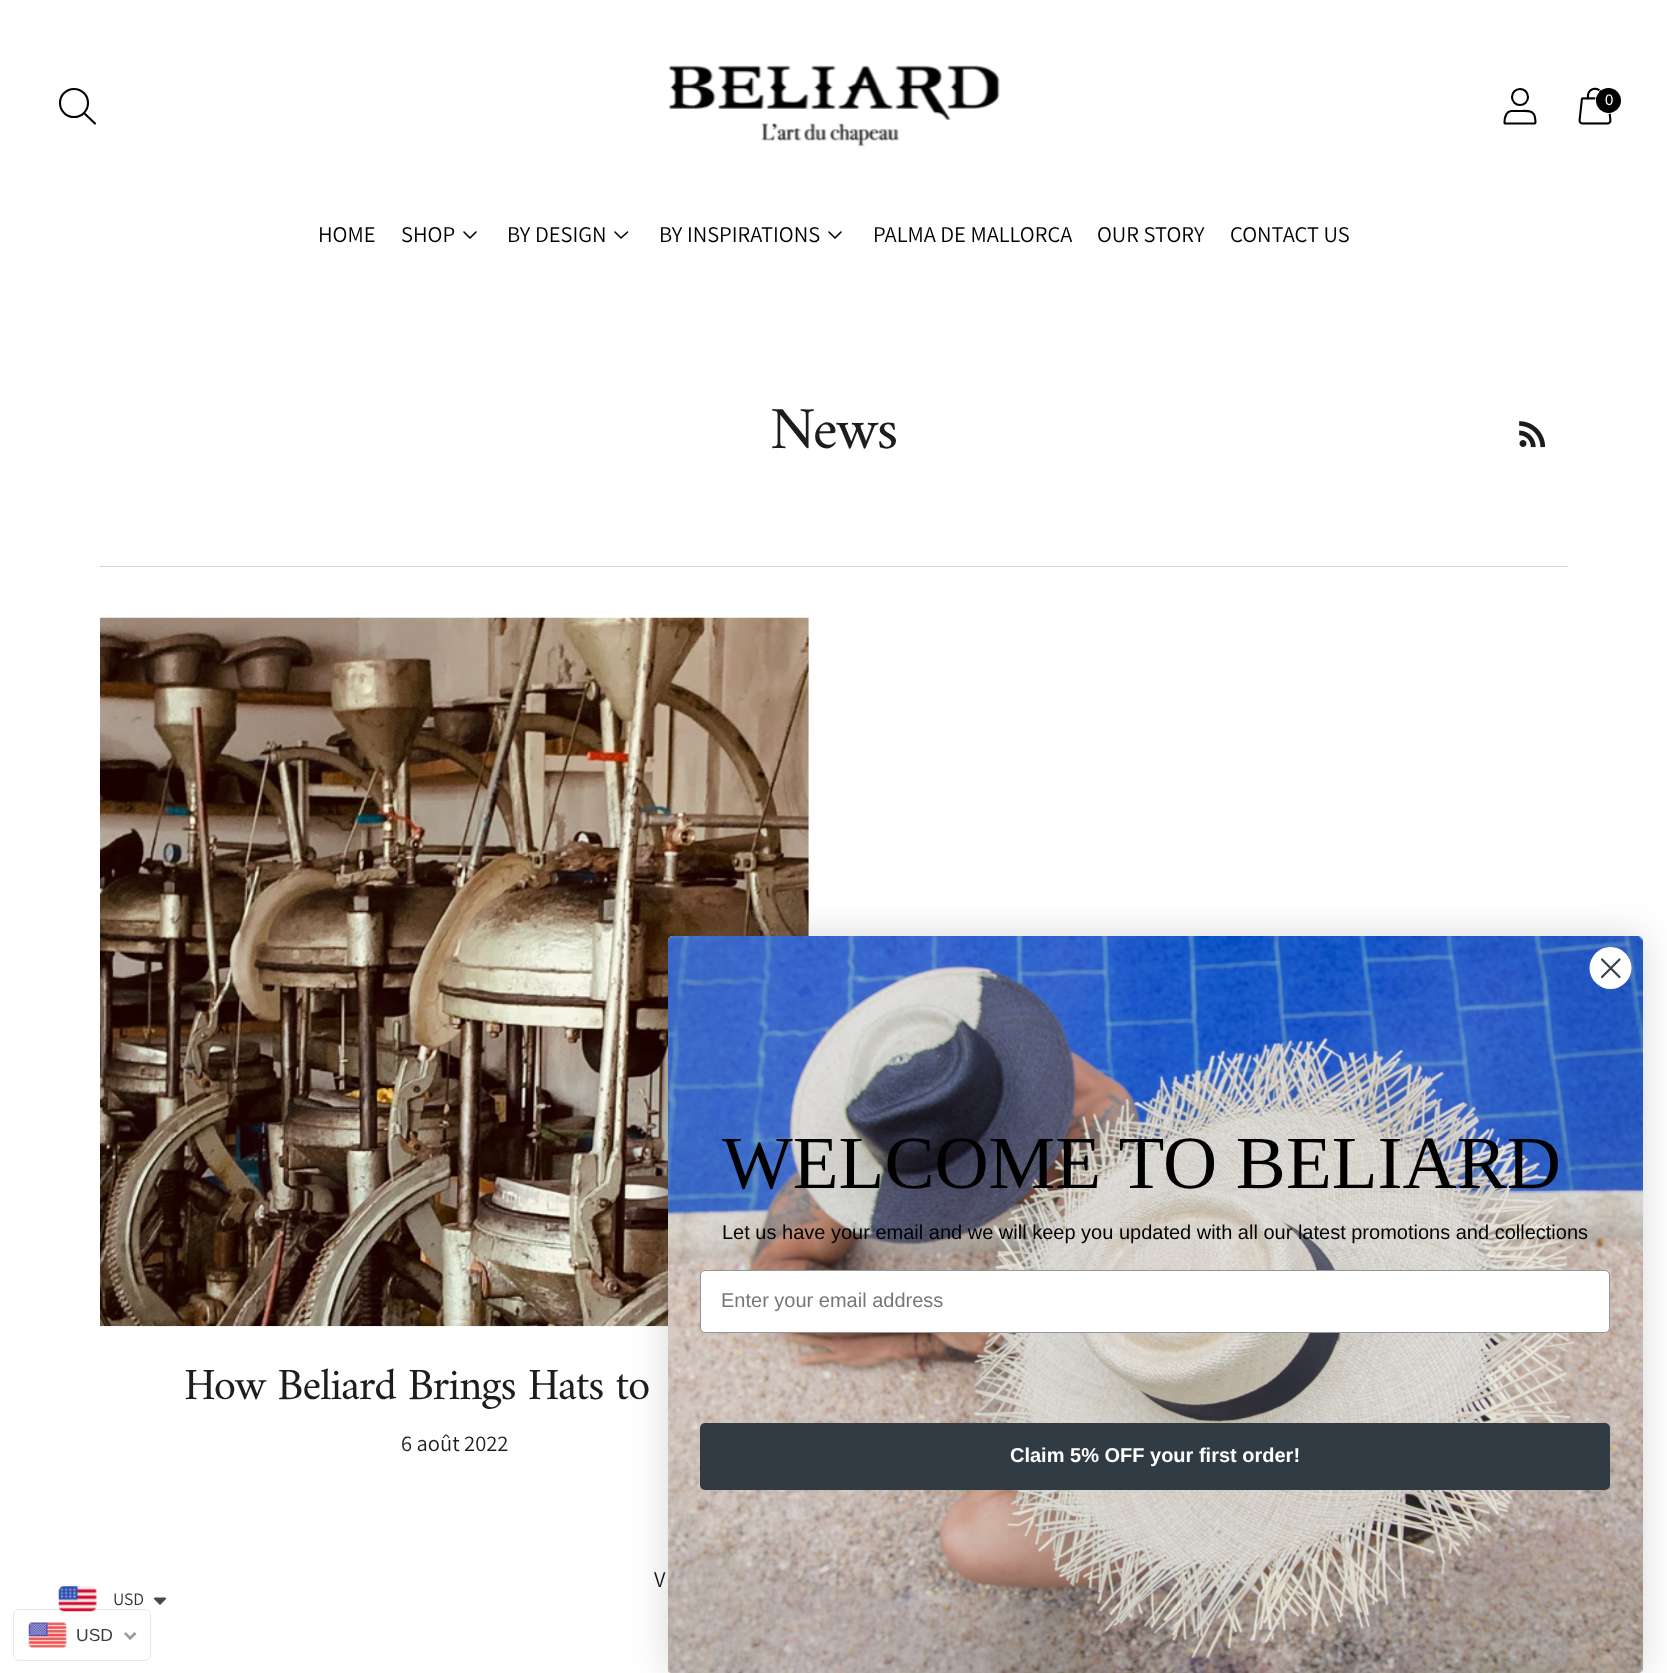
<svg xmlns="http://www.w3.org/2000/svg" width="1667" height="1673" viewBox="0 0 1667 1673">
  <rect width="100%" height="100%" fill="rgb(255,255,255)"/>
  <circle cx="74" cy="103" r="14" fill="none" stroke="rgb(0,0,0)" stroke-width="2.1"/>
  <path d="M84.5 113.5L95 123.5" fill="none" stroke="rgb(0,0,0)" stroke-width="2.1" stroke-linecap="round" stroke-linejoin="round"/>
  <image x="669" y="65" width="331" height="82" href="pic1.png"/>
  <circle cx="1520" cy="97" r="8" fill="none" stroke="rgb(0,0,0)" stroke-width="2.1"/>
  <path d="M1535 123.5C1536 123.5 1535 118 1535 117.5C1533.5 109.5 1526 111 1520 111H1511C1505.5 112 1504.5 118 1504.5 123L1505 123.5Z" fill="none" stroke="rgb(0,0,0)" stroke-width="2.1" stroke-linecap="round" stroke-linejoin="round"/>
  <image x="1578" y="87" width="34" height="38" href="pic2.png"/>
  <circle cx="1609" cy="100" r="13.5" fill="none" stroke="rgb(255,255,255)"/>
  <circle cx="1608.5" cy="100.5" r="12.5" fill="rgb(0,0,0)"/>
  <text x="1605" y="105" font-family="Liberation Sans" font-size="15" fill="rgb(255,255,255)">0</text>
  <g font-family="Assistant" font-size="22.5" fill="rgb(0,0,0)">
    <text x="318" y="242">HOME</text>
    <text x="401" y="242">SHOP</text>
  </g>
  <path d="M464 232L470 238L476 232" fill="none" stroke="rgb(0,0,0)" stroke-width="1.6" stroke-linecap="round" stroke-linejoin="round"/>
  <text x="507" y="242" font-family="Assistant" font-size="22.5" fill="rgb(0,0,0)">BY DESIGN</text>
  <path d="M615 232L621 238L627.5 232" fill="none" stroke="rgb(0,0,0)" stroke-width="1.6" stroke-linecap="round" stroke-linejoin="round"/>
  <text x="659" y="242" font-family="Assistant" font-size="22.5" fill="rgb(0,0,0)">BY INSPIRATIONS</text>
  <path d="M829 232L835 238L841 232" fill="none" stroke="rgb(0,0,0)" stroke-width="1.6" stroke-linecap="round" stroke-linejoin="round"/>
  <g font-family="Assistant" font-size="22.5" fill="rgb(0,0,0)">
    <text x="873" y="242">PALMA DE MALLORCA</text>
    <text x="1097" y="242">OUR STORY</text>
    <text x="1230" y="242">CONTACT US</text>
  </g>
  <text x="770" y="448" font-family="Amiri" font-size="60" letter-spacing="-1.5" fill="rgb(29,29,29)">News</text>
  <image x="1519" y="421" width="27" height="27" href="pic3.png"/>
  <rect x="100" y="566" width="1468" height="1" fill="rgb(212,212,212)"/>
  <image x="100" y="617" width="709" height="710" href="pic4.png"/>
  <text x="184" y="1399" font-family="Amiri" font-size="45" letter-spacing="-1.1" fill="rgb(29,29,29)">How Beliard Brings Hats to</text>
  <g font-family="Assistant" font-size="22.5" fill="rgb(29,29,29)">
    <text x="401" y="1451">6 août 2022</text>
    <text x="654" y="1587">V</text>
  </g>
  <rect x="668" y="936" width="975" height="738" rx="5" fill="rgba(0,0,0,0.15)" filter="blur(19px)"/>
  <rect x="668" y="936" width="975" height="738" rx="5" fill="rgb(255,255,255)"/>
  <image x="668" y="936" width="975" height="737" href="pic5.png"/>
  <circle cx="1610.5" cy="968" r="21" fill="rgb(255,255,255)"/>
  <path d="M1602 959.5L1619.5 977M1602 977L1619.5 959.5Z" fill="none" stroke="rgb(55,63,71)" stroke-width="2.2" stroke-linecap="round" stroke-linejoin="round"/>
  <text x="722" y="1188" font-family="Liberation Serif" font-size="75" fill="rgb(0,0,0)">WELCOME TO BELIARD</text>
  <text x="722" y="1239" font-family="Liberation Sans" font-size="20" fill="rgb(0,0,0)">Let us have your email and we will keep you updated with all our latest promotions and collections</text>
  <rect x="700.5" y="1270.5" width="909" height="62" rx="4.5" fill="rgb(255,255,255)" stroke="rgb(148,149,150)"/>
  <text x="721" y="1307" font-family="Liberation Sans" font-size="20" fill="rgb(118,118,118)">Enter your email address</text>
  <rect x="700" y="1423" width="910" height="67" rx="5" fill="rgb(48,59,67)"/>
  <text x="1010" y="1462" font-family="Liberation Sans" font-size="20" font-weight="bold" fill="rgb(255,255,255)">Claim 5% OFF your first order!</text>
  <rect x="13.5" y="1609.5" width="137" height="51" rx="5.5" fill="none" stroke="rgb(232,232,232)"/>
  <image x="58" y="1586" width="39" height="26" href="pic6.png"/>
  <text x="113" y="1605" font-family="Assistant" font-size="17.5" fill="rgb(51,51,51)">USD</text>
  <path d="M156 1597.5C155 1597.5 154 1598 153.5 1598.5L160 1605L166.5 1598.5C166 1598 165 1597.5 164 1597.5Z" fill="rgb(71,73,66)"/>
  <image x="28" y="1622" width="39" height="26" href="pic7.png"/>
  <text x="76" y="1641" font-family="Liberation Sans" font-size="17.5" fill="rgb(64,63,63)">USD</text>
  <path d="M134.5 1632L136.5 1634L130 1640L128.5 1638Z" fill="rgb(153,153,153)"/>
  <path d="M125.5 1632L132 1638L130 1640L124 1634Z" fill="rgb(153,153,153)"/>
</svg>
